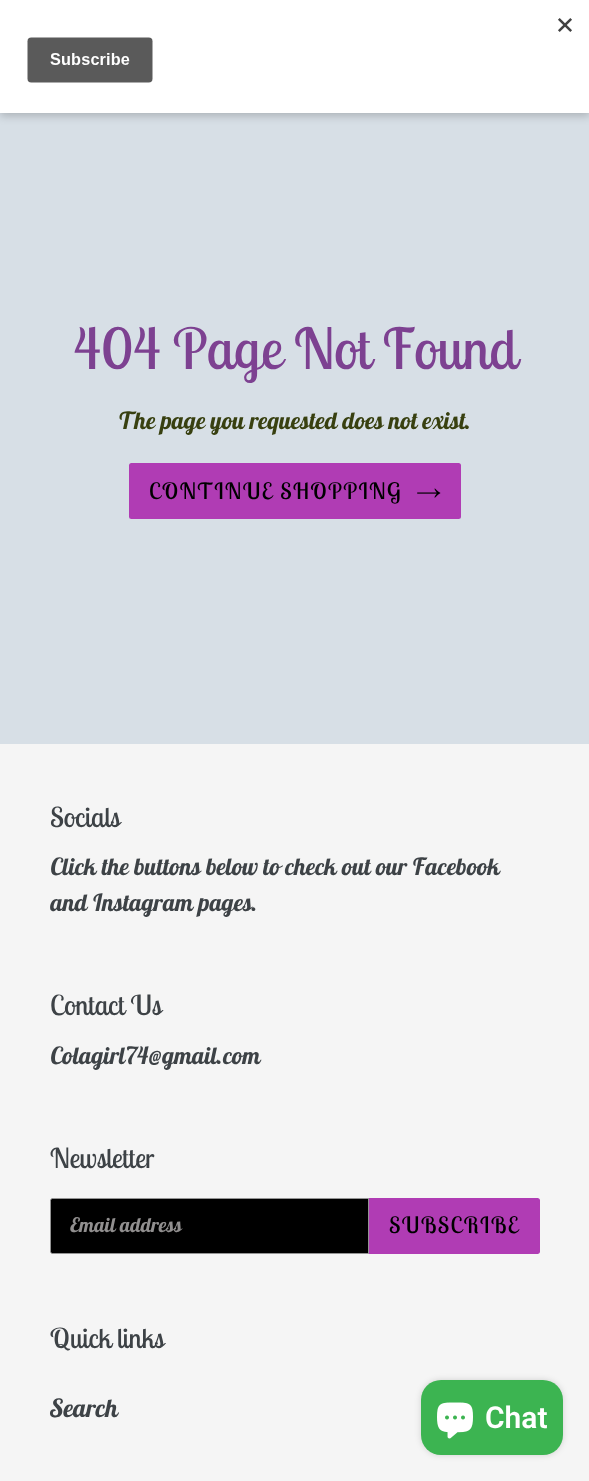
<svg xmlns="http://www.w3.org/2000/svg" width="589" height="1481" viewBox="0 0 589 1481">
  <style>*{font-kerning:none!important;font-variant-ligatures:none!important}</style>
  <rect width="100%" height="100%" fill="rgb(215,223,230)"/>
  <rect x="0" y="4" width="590" height="112" fill="rgba(0,0,0,0.2)" filter="blur(4px)"/>
  <rect x="0" y="0" width="589" height="113" fill="rgb(255,255,255)"/>
  <image x="27" y="18" width="545" height="65" href="pic1.png"/>
  <text x="74" y="369" font-family="Lobster Two" font-size="56.25" fill="rgb(125,65,145)">404 Page Not Found</text>
  <text x="118" y="429" font-family="Lobster Two" font-size="23.75" font-weight="bold" font-style="italic" fill="rgb(56,64,16)">The page you requested does not exist.</text>
  <rect x="129" y="463" width="332" height="56" rx="2.5" fill="rgb(176,60,180)"/>
  <text x="149" y="499" font-family="Lobster Two" font-size="22.5" letter-spacing="1.75" fill="rgb(0,0,0)">CONTINUE SHOPPING</text>
  <image x="417" y="488" width="24" height="10" href="pic2.png"/>
  <rect x="0" y="744" width="589" height="737" fill="rgb(245,245,245)"/>
  <text x="50" y="827" font-family="Lobster Two" font-size="27.5" fill="rgb(61,66,70)">Socials</text>
  <g font-family="Lobster Two" font-size="23.75" font-weight="bold" font-style="italic" fill="rgb(61,66,70)">
    <text>
      <tspan x="50" y="875">Click the buttons below to check out our Facebook</tspan>
      <tspan x="50" y="911">and Instagram pages.</tspan>
    </text>
  </g>
  <text x="50" y="1015" font-family="Lobster Two" font-size="27.5" fill="rgb(61,66,70)">Contact Us</text>
  <text x="50" y="1064" font-family="Lobster Two" font-size="23.75" font-weight="bold" font-style="italic" fill="rgb(61,66,70)">Colagirl74@gmail.com</text>
  <text x="50" y="1168" font-family="Lobster Two" font-size="27.5" fill="rgb(61,66,70)">Newsletter</text>
  <path d="M52.5 1198.5H368.5V1253.5H52.5C51.5 1253.5 50.5 1252.5 50.5 1251.5V1200.5C50.5 1199.5 51.5 1198.5 52.5 1198.5Z" fill="rgb(0,0,0)" stroke="rgb(148,148,148)"/>
  <text x="70" y="1232" font-family="Lobster Two" font-size="20" font-weight="bold" font-style="italic" fill="rgb(145,143,143)">Email address</text>
  <path d="M369 1198H537.5C539 1198 540 1199 540 1200.5V1251.5C540 1253 539 1254 537.5 1254H369Z" fill="rgb(176,60,180)"/>
  <text x="389" y="1233" font-family="Lobster Two" font-size="22.5" letter-spacing="1.75" fill="rgb(0,0,0)">SUBSCRIBE</text>
  <text x="50" y="1348" font-family="Lobster Two" font-size="27.5" fill="rgb(61,66,70)">Quick links</text>
  <text x="50" y="1417" font-family="Lobster Two" font-size="25" font-weight="bold" font-style="italic" fill="rgb(61,66,70)">Search</text>
  <rect x="421" y="1380" width="142" height="75" rx="20" fill="rgba(0,0,0,0.15)" filter="blur(3px)"/>
  <rect x="421" y="1380" width="142" height="75" rx="20" fill="rgb(60,180,81)"/>
  <image x="437" y="1402" width="36" height="37" href="pic3.png"/>
  <text x="485" y="1428" font-family="Roboto" font-size="30" font-weight="600" fill="rgb(255,255,255)">Chat</text>
</svg>
